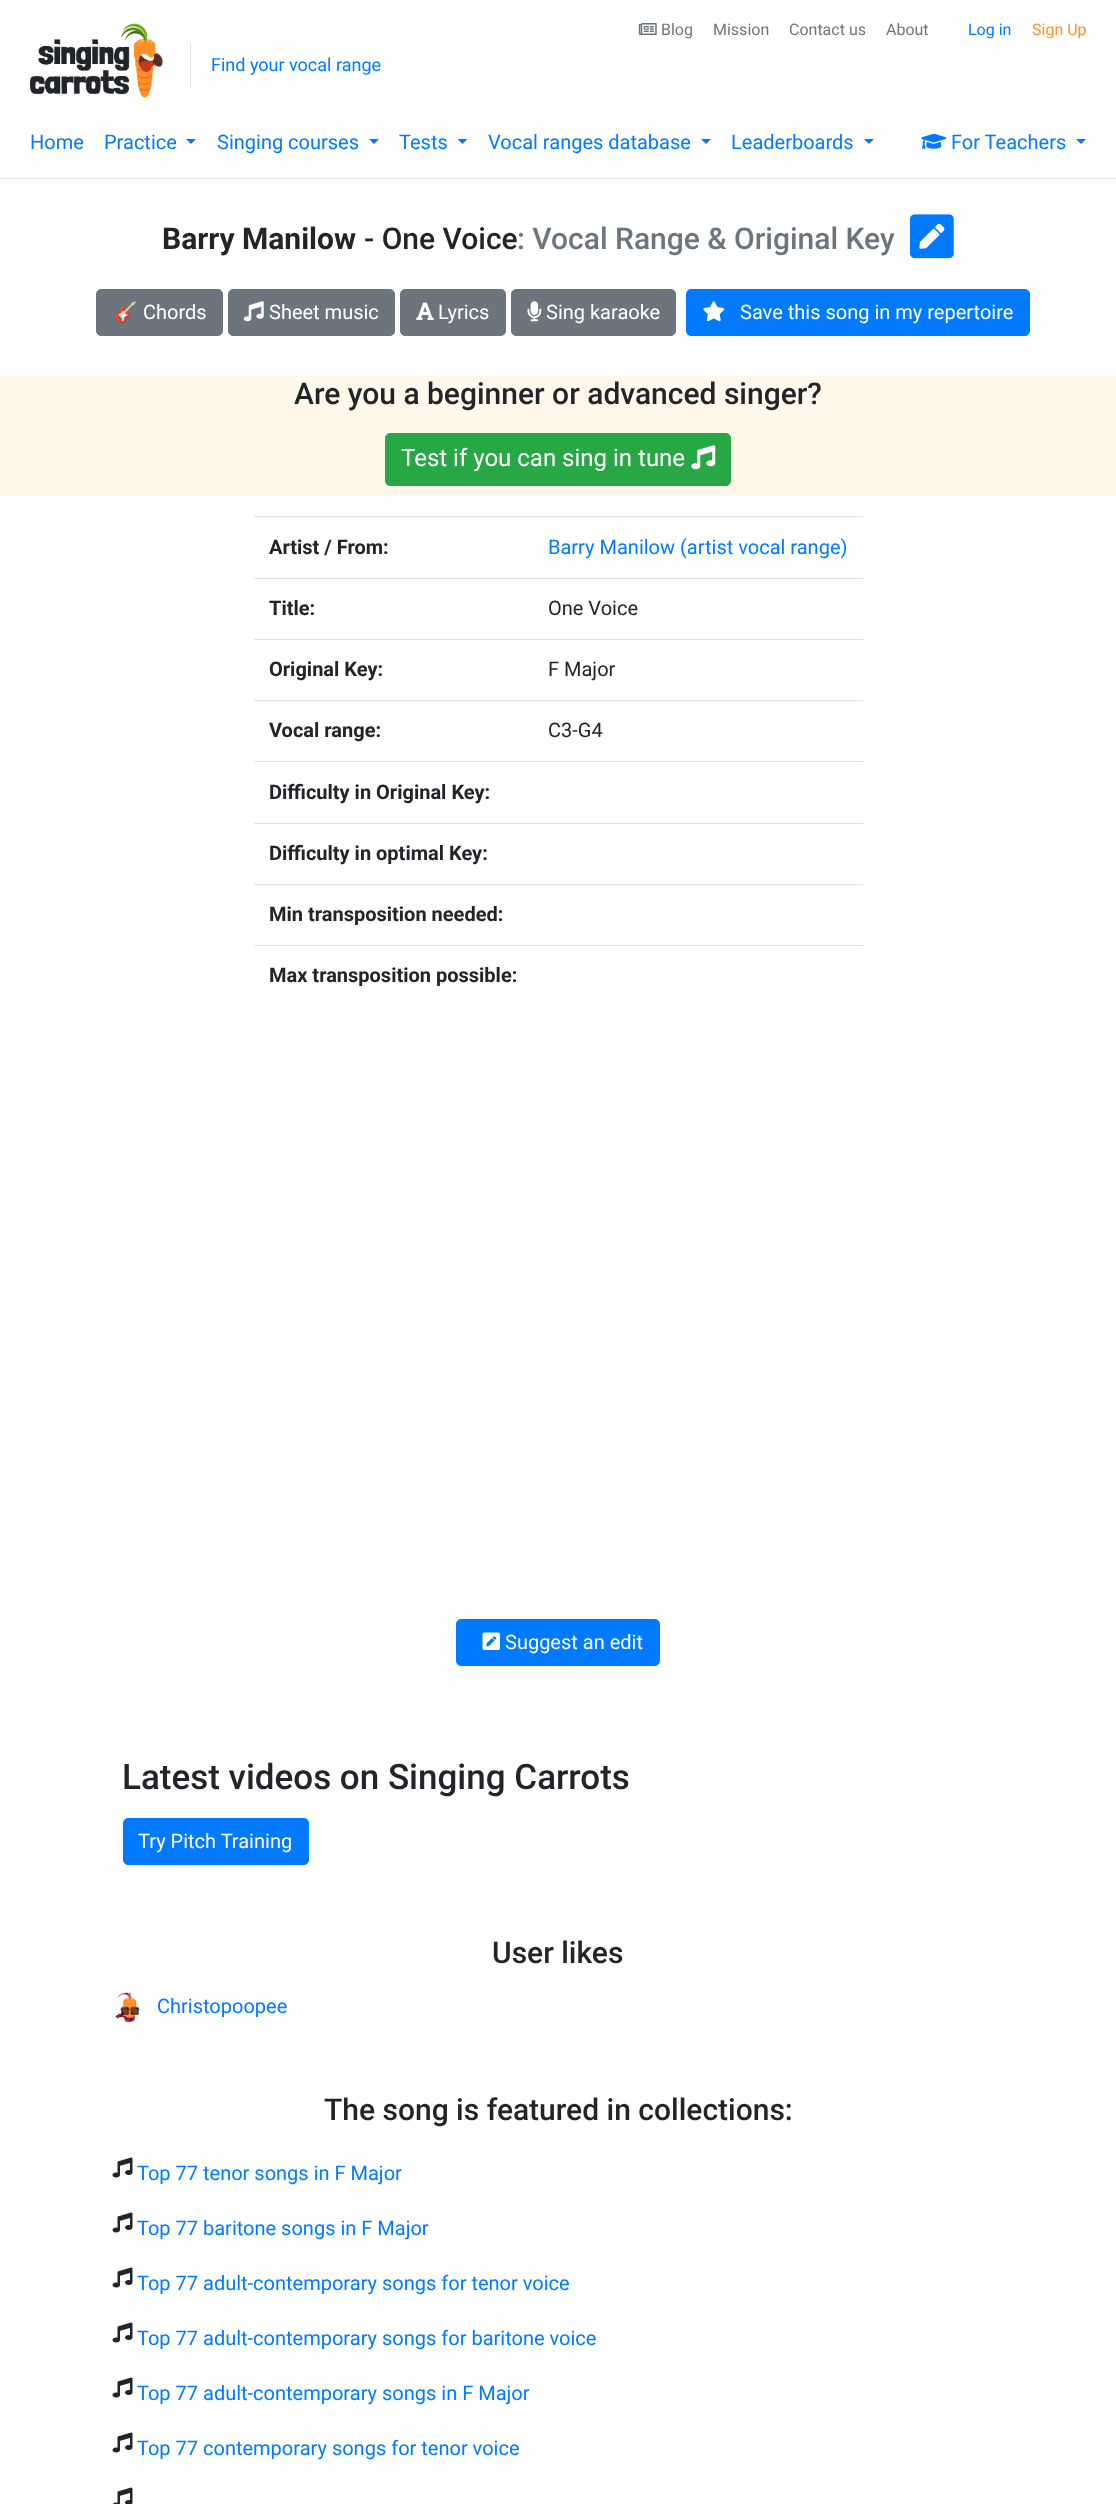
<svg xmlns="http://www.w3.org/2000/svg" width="1116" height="2504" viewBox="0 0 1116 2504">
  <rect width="100%" height="100%" fill="rgb(255,255,255)"/>
  <rect x="0" y="178" width="1116" height="1" fill="rgb(226,226,226)"/>
  <image x="30" y="23" width="133" height="75" href="pic1.png"/>
  <image x="638" y="23" width="19" height="12" href="pic2.png"/>
  <g font-family="Roboto" font-size="16" fill="rgb(108,117,125)">
    <text x="661" y="35">Blog</text>
    <text x="713" y="35">Mission</text>
    <text x="789" y="35">Contact us</text>
    <text x="886" y="35">About</text>
  </g>
  <text x="968" y="35" font-family="Roboto" font-size="16" fill="rgb(0,123,255)">Log in</text>
  <text x="1032" y="35" font-family="Roboto" font-size="16" fill="rgb(255,145,38)">Sign Up</text>
  <g font-family="Roboto" font-size="20" fill="rgb(0,123,255)">
    <text x="30" y="149">Home</text>
    <text x="104" y="149">Practice</text>
  </g>
  <path d="M186 139H196L191 144Z" fill="rgb(0,123,255)"/>
  <text x="217" y="149" font-family="Roboto" font-size="20" fill="rgb(0,123,255)">Singing courses</text>
  <path d="M369 139H379L374 144Z" fill="rgb(0,123,255)"/>
  <text x="399" y="149" font-family="Roboto" font-size="20" fill="rgb(0,123,255)">Tests</text>
  <path d="M457.5 139H467.5L462.5 144Z" fill="rgb(0,123,255)"/>
  <text x="488" y="149" font-family="Roboto" font-size="20" fill="rgb(0,123,255)">Vocal ranges database</text>
  <path d="M701 139H711L706 144Z" fill="rgb(0,123,255)"/>
  <text x="731" y="149" font-family="Roboto" font-size="20" fill="rgb(0,123,255)">Leaderboards</text>
  <path d="M864 139H874L869 144Z" fill="rgb(0,123,255)"/>
  <image x="921" y="133" width="26" height="16" href="pic3.png"/>
  <text x="951" y="149" font-family="Roboto" font-size="20" fill="rgb(0,123,255)">For Teachers</text>
  <path d="M1076 139H1086L1081 144Z" fill="rgb(0,123,255)"/>
  <rect x="190" y="43" width="1" height="46" fill="rgb(226,226,226)"/>
  <text x="211" y="71" font-family="Roboto" font-size="18" fill="rgb(0,123,255)">Find your vocal range</text>
  <text x="162" y="249" font-family="Roboto" font-size="30" font-weight="bold" fill="rgb(33,37,41)">Barry Manilow</text>
  <text x="364" y="249" font-family="Roboto" font-size="30" font-weight="500" fill="rgb(33,37,41)">- One Voice</text>
  <text x="517" y="249" font-family="Roboto" font-size="30" font-weight="500" fill="rgb(108,117,125)">: Vocal Range &amp; Original Key</text>
  <image x="910" y="214" width="44" height="45" href="pic4.png"/>
  <rect x="96.5" y="289.5" width="126" height="46" rx="4.5" fill="rgb(108,117,125)" stroke="rgb(108,117,125)"/>
  <text x="113" y="319" font-family="Noto Color Emoji" font-size="20" fill="rgb(255,255,255)">🎸</text>
  <text x="143" y="319" font-family="Roboto" font-size="20" fill="rgb(255,255,255)">Chords</text>
  <rect x="228.5" y="289.5" width="166" height="46" rx="4.5" fill="rgb(108,117,125)" stroke="rgb(108,117,125)"/>
  <image x="243" y="301" width="21" height="21" href="pic5.png"/>
  <text x="269" y="319" font-family="Roboto" font-size="20" fill="rgb(255,255,255)">Sheet music</text>
  <rect x="400.5" y="289.5" width="105" height="46" rx="4.5" fill="rgb(108,117,125)" stroke="rgb(108,117,125)"/>
  <image x="416" y="302" width="18" height="18" href="pic6.png"/>
  <text x="438" y="319" font-family="Roboto" font-size="20" fill="rgb(255,255,255)">Lyrics</text>
  <rect x="511.5" y="289.5" width="164" height="46" rx="4.5" fill="rgb(108,117,125)" stroke="rgb(108,117,125)"/>
  <image x="527" y="301" width="15" height="21" href="pic7.png"/>
  <text x="546" y="319" font-family="Roboto" font-size="20" fill="rgb(255,255,255)">Sing karaoke</text>
  <rect x="686.5" y="289.5" width="343" height="46" rx="4.5" fill="rgb(0,123,255)" stroke="rgb(0,123,255)"/>
  <image x="703" y="301" width="22" height="21" href="pic8.png"/>
  <text x="740" y="319" font-family="Roboto" font-size="20" fill="rgb(255,255,255)">Save this song in my repertoire</text>
  <rect x="0" y="376" width="1116" height="120" fill="rgb(254,248,234)"/>
  <text x="294" y="404" font-family="Roboto" font-size="30" font-weight="500" fill="rgb(33,37,41)">Are you a beginner or advanced singer?</text>
  <rect x="385.5" y="433.5" width="345" height="52" rx="4.5" fill="rgb(40,167,69)" stroke="rgb(40,167,69)"/>
  <text x="401" y="466" font-family="Roboto" font-size="24" fill="rgb(255,255,255)">Test if you can sing in tune</text>
  <image x="691" y="445" width="25" height="25" href="pic9.png"/>
  <text x="269" y="554" font-family="Roboto" font-size="20" font-weight="bold" fill="rgb(33,37,41)">Artist / From:</text>
  <rect x="254" y="516" width="609" height="1" fill="rgb(222,226,230)"/>
  <text x="548" y="554" font-family="Roboto" font-size="20" fill="rgb(0,123,255)">Barry Manilow (artist vocal range)</text>
  <text x="269" y="615" font-family="Roboto" font-size="20" font-weight="bold" fill="rgb(33,37,41)">Title:</text>
  <rect x="254" y="578" width="609" height="1" fill="rgb(222,226,230)"/>
  <text x="548" y="615" font-family="Roboto" font-size="20" fill="rgb(33,37,41)">One Voice</text>
  <text x="269" y="676" font-family="Roboto" font-size="20" font-weight="bold" fill="rgb(33,37,41)">Original Key:</text>
  <rect x="254" y="639" width="609" height="1" fill="rgb(222,226,230)"/>
  <text x="548" y="676" font-family="Roboto" font-size="20" fill="rgb(33,37,41)">F Major</text>
  <text x="269" y="737" font-family="Roboto" font-size="20" font-weight="bold" fill="rgb(33,37,41)">Vocal range:</text>
  <rect x="254" y="700" width="609" height="1" fill="rgb(222,226,230)"/>
  <text x="548" y="737" font-family="Roboto" font-size="20" fill="rgb(33,37,41)">C3-G4</text>
  <rect x="254" y="761" width="609" height="1" fill="rgb(222,226,230)"/>
  <text x="269" y="799" font-family="Roboto" font-size="20" font-weight="bold" fill="rgb(33,37,41)">Difficulty in Original Key:</text>
  <rect x="254" y="823" width="609" height="1" fill="rgb(222,226,230)"/>
  <text x="269" y="860" font-family="Roboto" font-size="20" font-weight="bold" fill="rgb(33,37,41)">Difficulty in optimal Key:</text>
  <rect x="254" y="884" width="609" height="1" fill="rgb(222,226,230)"/>
  <text x="269" y="921" font-family="Roboto" font-size="20" font-weight="bold" fill="rgb(33,37,41)">Min transposition needed:</text>
  <rect x="254" y="945" width="609" height="1" fill="rgb(222,226,230)"/>
  <text x="269" y="982" font-family="Roboto" font-size="20" font-weight="bold" fill="rgb(33,37,41)">Max transposition possible:</text>
  <rect x="456.5" y="1619.5" width="203" height="46" rx="4.5" fill="rgb(0,123,255)" stroke="rgb(0,123,255)"/>
  <image x="482" y="1632" width="18" height="18" href="pic10.png"/>
  <text x="505" y="1649" font-family="Roboto" font-size="20" fill="rgb(255,255,255)">Suggest an edit</text>
  <text x="122" y="1789" font-family="Roboto" font-size="35" font-weight="500" fill="rgb(33,37,41)">Latest videos on Singing Carrots</text>
  <rect x="123.5" y="1818.5" width="185" height="46" rx="4.5" fill="rgb(0,123,255)" stroke="rgb(0,123,255)"/>
  <text x="138" y="1848" font-family="Roboto" font-size="20" fill="rgb(255,255,255)">Try Pitch Training</text>
  <text x="492" y="1963" font-family="Roboto" font-size="30" font-weight="500" fill="rgb(33,37,41)">User likes</text>
  <image x="115" y="1992" width="25" height="31" href="pic11.png"/>
  <text x="157" y="2013" font-family="Roboto" font-size="20" fill="rgb(0,123,255)">Christopoopee</text>
  <text x="324" y="2120" font-family="Roboto" font-size="30" font-weight="500" fill="rgb(33,37,41)">The song is featured in collections:</text>
  <image x="112" y="2157" width="21" height="21" href="pic12.png"/>
  <text x="137" y="2180" font-family="Roboto" font-size="20" fill="rgb(0,123,255)">Top 77 tenor songs in F Major</text>
  <image x="112" y="2212" width="21" height="21" href="pic12.png"/>
  <text x="137" y="2235" font-family="Roboto" font-size="20" fill="rgb(0,123,255)">Top 77 baritone songs in F Major</text>
  <image x="112" y="2267" width="21" height="21" href="pic12.png"/>
  <text x="137" y="2290" font-family="Roboto" font-size="20" fill="rgb(0,123,255)">Top 77 adult-contemporary songs for tenor voice</text>
  <image x="112" y="2322" width="21" height="21" href="pic12.png"/>
  <text x="137" y="2345" font-family="Roboto" font-size="20" fill="rgb(0,123,255)">Top 77 adult-contemporary songs for baritone voice</text>
  <image x="112" y="2377" width="21" height="21" href="pic12.png"/>
  <text x="137" y="2400" font-family="Roboto" font-size="20" fill="rgb(0,123,255)">Top 77 adult-contemporary songs in F Major</text>
  <image x="112" y="2432" width="21" height="21" href="pic12.png"/>
  <text x="137" y="2455" font-family="Roboto" font-size="20" fill="rgb(0,123,255)">Top 77 contemporary songs for tenor voice</text>
  <image x="113" y="2487" width="20" height="17" href="pic13.png"/>
</svg>
